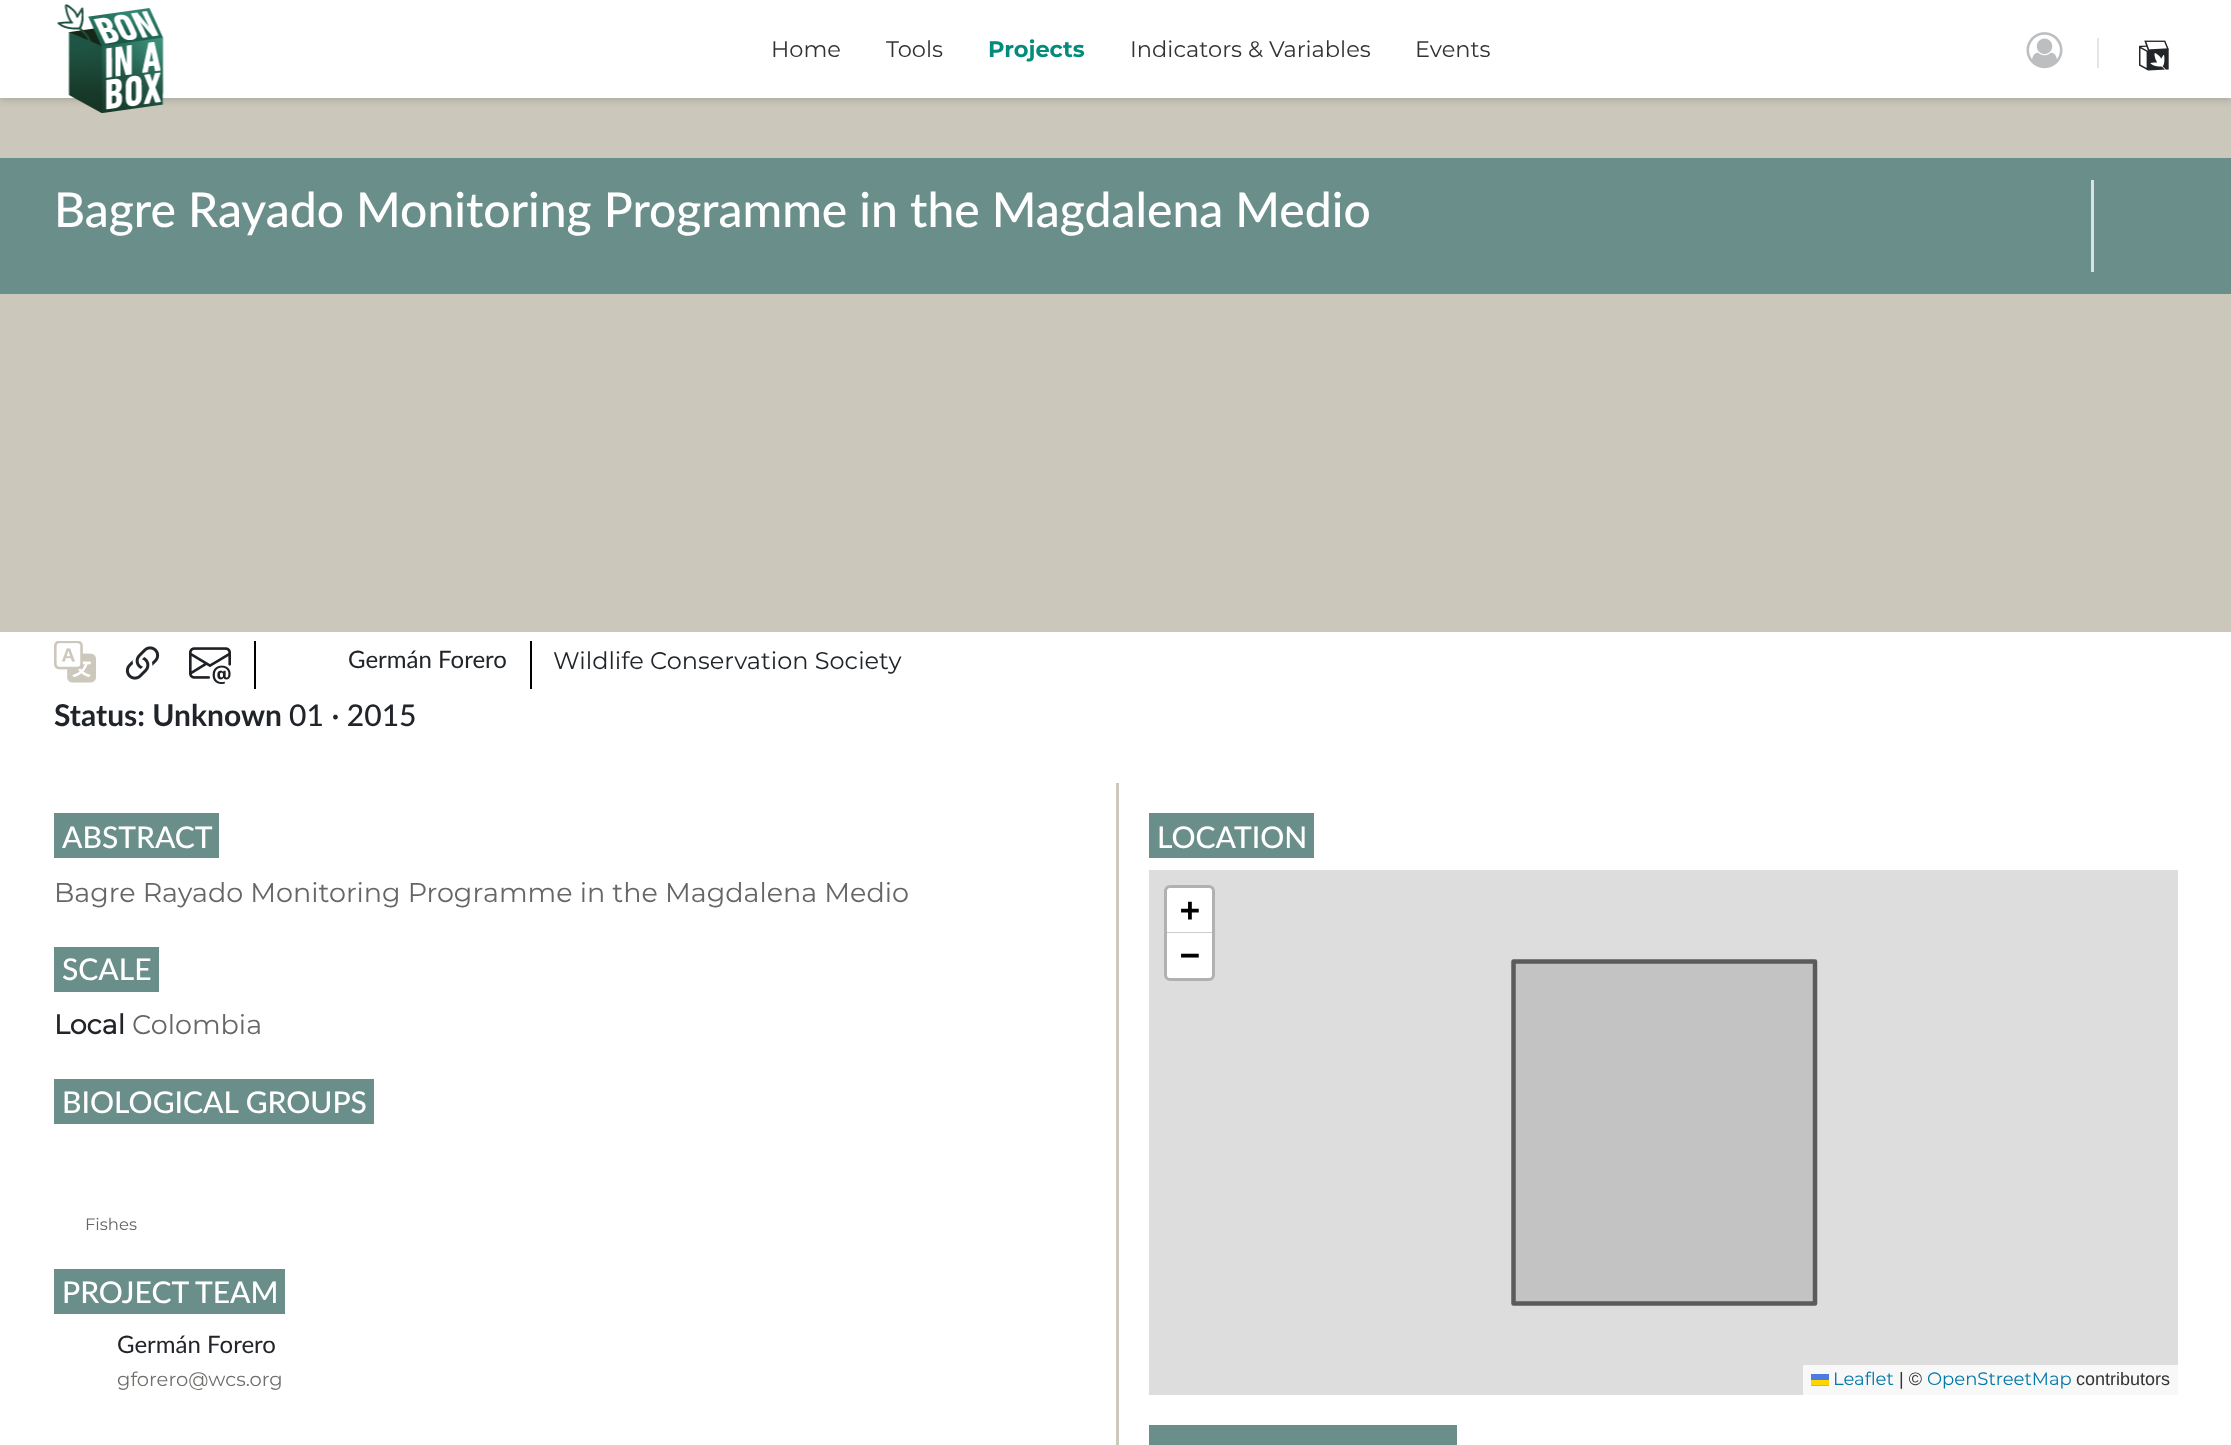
<svg xmlns="http://www.w3.org/2000/svg" width="2231" height="1445" viewBox="0 0 2231 1445">
  <rect width="100%" height="100%" fill="rgb(255,255,255)"/>
  <rect x="0" y="98" width="2231" height="534" fill="rgb(203,199,187)"/>
  <rect x="0" y="2" width="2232" height="97" fill="rgba(0,0,0,0.2)" filter="blur(4px)"/>
  <rect x="0" y="0" width="2231" height="98" fill="rgb(255,255,255)"/>
  <image x="57" y="4" width="107" height="109" href="pic1.png"/>
  <g font-family="Montserrat" font-size="22.5" fill="rgb(51,51,51)">
    <text x="771" y="57">Home</text>
    <text x="886" y="57">Tools</text>
  </g>
  <text x="988" y="57" font-family="'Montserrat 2'" font-size="22.5" font-weight="bold" fill="rgb(3,140,124)">Projects</text>
  <g font-family="Montserrat" font-size="22.5" fill="rgb(51,51,51)">
    <text x="1130" y="57">Indicators &amp; Variables</text>
    <text x="1415" y="57">Events</text>
  </g>
  <image x="2026" y="32" width="37" height="37" href="pic2.png"/>
  <rect x="2097" y="38" width="2" height="30" fill="rgb(229,229,229)"/>
  <image x="2139" y="40" width="30" height="31" href="pic3.png"/>
  <rect x="0" y="158" width="2231" height="136" fill="rgb(106,142,138)"/>
  <text x="54" y="227" font-family="Lato" font-size="48" font-weight="500" fill="rgb(255,255,255)">Bagre Rayado Monitoring Programme in the Magdalena Medio</text>
  <rect x="2091" y="180" width="3" height="92" fill="rgb(218,227,226)"/>
  <image x="54" y="641" width="42" height="42" href="pic4.png"/>
  <image x="125" y="646" width="35" height="34" href="pic5.png"/>
  <image x="189" y="647" width="42" height="37" href="pic6.png"/>
  <rect x="254" y="641" width="2" height="48" fill="rgb(0,0,0)"/>
  <text x="348" y="668" font-family="Lato" font-size="24" fill="rgb(33,37,41)">Germán Forero</text>
  <rect x="530" y="641" width="2" height="48" fill="rgb(0,0,0)"/>
  <text x="553" y="669" font-family="Montserrat" font-size="24" fill="rgb(33,37,41)">Wildlife Conservation Society</text>
  <text x="54" y="726" font-family="Lato" font-size="30" font-weight="bold" fill="rgb(33,37,41)">Status: Unknown</text>
  <text x="289" y="726" font-family="Lato" font-size="30" font-weight="500" fill="rgb(33,37,41)">01 · 2015</text>
  <rect x="54" y="813" width="165" height="45" fill="rgb(106,142,138)"/>
  <text x="62" y="848" font-family="Lato" font-size="30" font-weight="500" fill="rgb(255,255,255)">ABSTRACT</text>
  <text x="54" y="902" font-family="Montserrat" font-size="27" fill="rgb(102,102,102)">Bagre Rayado Monitoring Programme in the Magdalena Medio</text>
  <rect x="54" y="947" width="105" height="45" fill="rgb(106,142,138)"/>
  <text x="62" y="980" font-family="Lato" font-size="30" font-weight="500" fill="rgb(255,255,255)">SCALE</text>
  <text x="54" y="1034" font-family="Montserrat" font-size="27" font-weight="bold" fill="rgb(33,37,41)">Local</text>
  <text x="132" y="1034" font-family="Montserrat" font-size="27" fill="rgb(102,102,102)">Colombia</text>
  <rect x="54" y="1079" width="320" height="45" fill="rgb(106,142,138)"/>
  <text x="62" y="1113" font-family="Lato" font-size="30" font-weight="500" fill="rgb(255,255,255)">BIOLOGICAL GROUPS</text>
  <text x="85" y="1230" font-family="Montserrat" font-size="16.5" fill="rgb(102,102,102)">Fishes</text>
  <rect x="54" y="1269" width="231" height="45" fill="rgb(106,142,138)"/>
  <text x="62" y="1303" font-family="Lato" font-size="30" font-weight="500" fill="rgb(255,255,255)">PROJECT TEAM</text>
  <text x="117" y="1353" font-family="Lato" font-size="24" fill="rgb(33,37,41)">Germán Forero</text>
  <text x="117" y="1386" font-family="Montserrat" font-size="19.5" fill="rgb(111,111,108)">gforero@wcs.org</text>
  <rect x="1116" y="783" width="3" height="662" fill="rgb(204,200,188)"/>
  <rect x="1149" y="813" width="165" height="45" fill="rgb(106,142,138)"/>
  <text x="1157" y="848" font-family="Lato" font-size="30" font-weight="500" fill="rgb(255,255,255)">LOCATION</text>
  <rect x="1149" y="870" width="1029" height="525" fill="rgb(221,221,221)"/>
  <rect x="1165.5" y="886.5" width="48" height="93" rx="4.5" fill="none" stroke="rgb(177,177,177)" stroke-width="3"/>
  <path d="M1170 888H1209C1210.5 888 1212 889.5 1212 891V933H1167V891C1167 889.5 1168.5 888 1170 888Z" fill="rgb(255,255,255)"/>
  <rect x="1167" y="932" width="45" height="1" fill="rgb(204,204,204)"/>
  <text x="1180" y="921" font-family="DejaVu Sans Mono" font-size="33" font-weight="bold" fill="rgb(0,0,0)">+</text>
  <path d="M1167 933H1212V975C1212 976.5 1210.5 978 1209 978H1170C1168.5 978 1167 976.5 1167 975Z" fill="rgb(255,255,255)"/>
  <text x="1180" y="966" font-family="DejaVu Sans Mono" font-size="33" font-weight="bold" fill="rgb(0,0,0)">−</text>
  <rect x="1803" y="1365" width="375" height="30" fill="rgb(248,248,248)"/>
  <text x="1833" y="1385" font-family="Montserrat" font-size="18" fill="rgb(0,120,168)">Leaflet</text>
  <rect x="1811" y="1374" width="18" height="6" fill="rgb(76,123,225)"/>
  <rect x="1811" y="1380" width="18" height="5" fill="rgb(255,213,0)"/>
  <rect x="1811" y="1385" width="18" height="1" fill="rgb(224,188,0)"/>
  <text x="1899" y="1385" font-family="Liberation Sans" font-size="18" fill="rgb(51,51,51)">| ©</text>
  <text x="1927" y="1385" font-family="Montserrat" font-size="18" fill="rgb(0,120,168)">OpenStreetMap</text>
  <text x="2076" y="1385" font-family="Liberation Sans" font-size="18" fill="rgb(51,51,51)">contributors</text>
  <rect x="1515" y="963" width="298" height="339" fill="rgb(195,195,195)"/>
  <path d="M1513.5 1303.5H1815V961.5H1513.5Z" fill="none" stroke="rgb(91,91,91)" stroke-width="4.5" stroke-linecap="round" stroke-linejoin="round"/>
  <rect x="1149" y="1425" width="308" height="20" fill="rgb(106,142,138)"/>
</svg>
